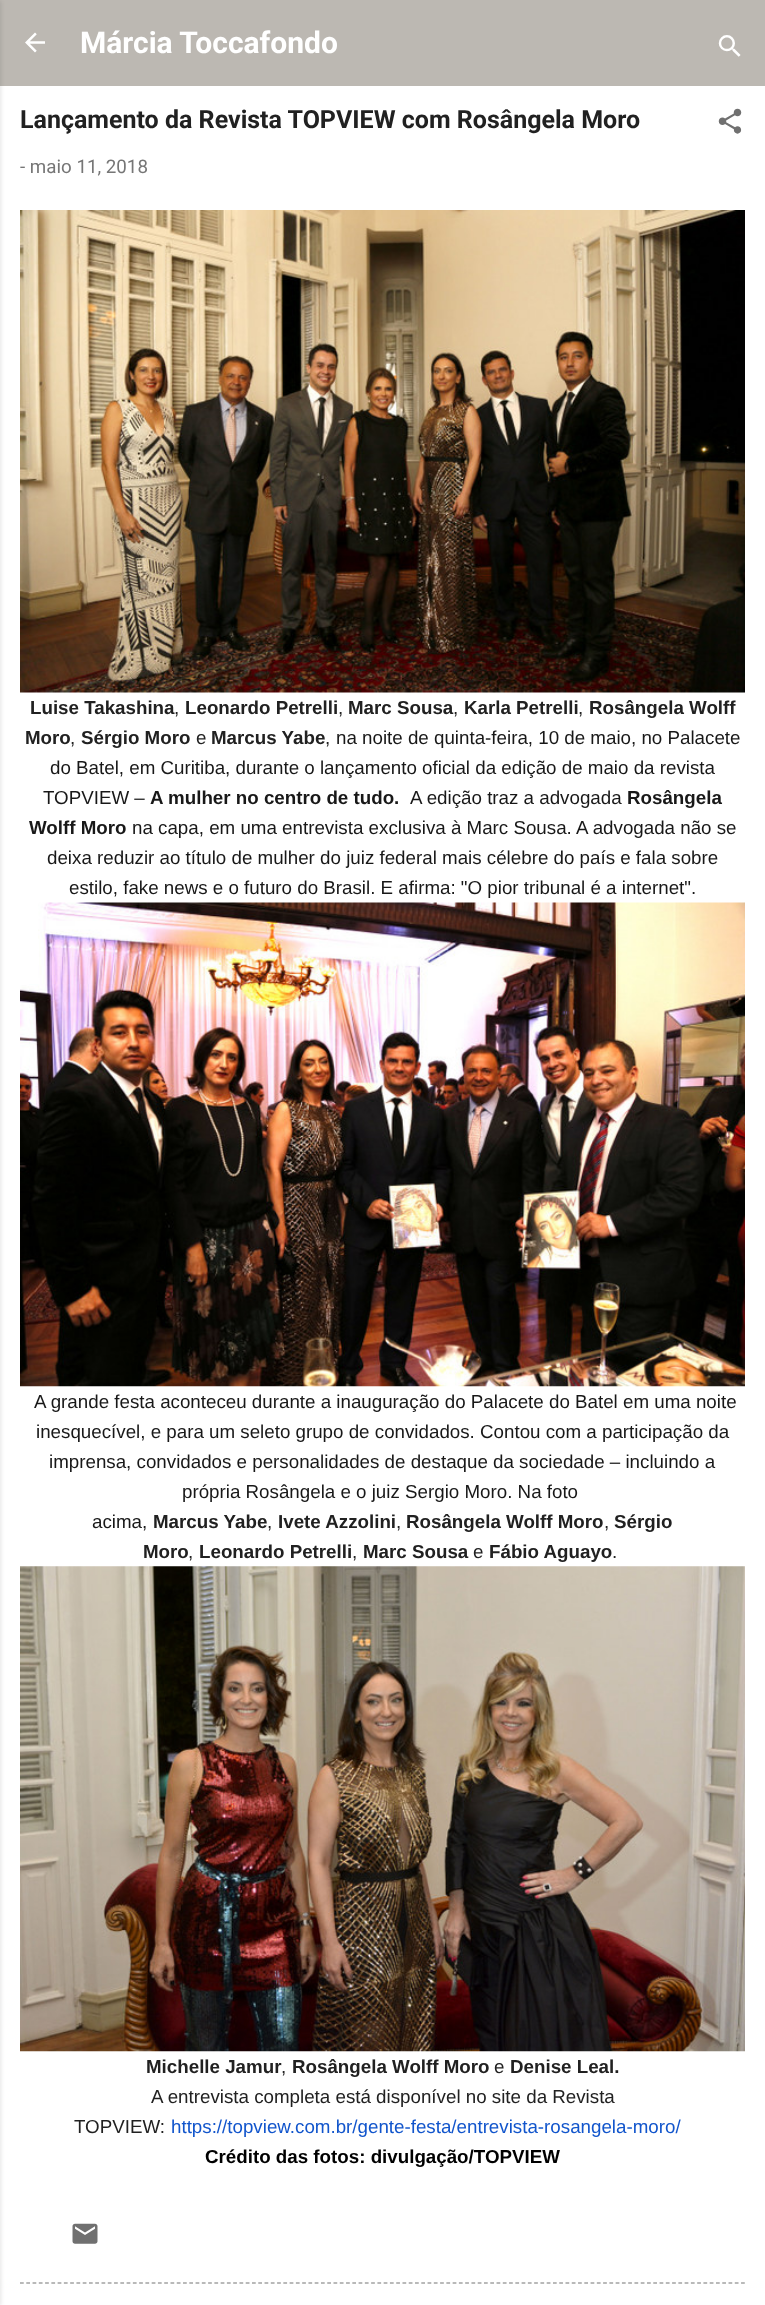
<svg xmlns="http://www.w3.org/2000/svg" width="765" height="2305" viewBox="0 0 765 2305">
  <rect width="100%" height="100%" fill="rgb(188,184,178)"/>
  <rect x="0" y="86" width="765" height="2219" fill="rgb(255,255,255)"/>
  <rect x="-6" y="1" width="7" height="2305" fill="rgba(0,0,0,0.1)" filter="blur(2px)"/>
  <image x="25" y="32" width="20" height="21" href="pic1.png"/>
  <text x="80" y="53" font-family="Roboto" font-size="30" font-weight="bold" fill="rgb(255,255,255)">Márcia Toccafondo</text>
  <image x="718" y="35" width="23" height="22" href="pic2.png"/>
  <text x="20" y="128" font-family="Roboto" font-size="25" font-weight="bold" fill="rgb(33,33,33)">Lançamento da Revista TOPVIEW com Rosângela Moro</text>
  <image x="718" y="108" width="24" height="26" href="pic3.png"/>
  <text x="20" y="173" font-family="Roboto" font-size="18.75" fill="rgb(118,118,118)">- maio 11, 2018</text>
  <image x="20" y="210" width="725" height="483" href="pic4.png"/>
  <text x="30" y="714" font-family="Liberation Sans" font-size="18.75" font-weight="bold" fill="rgb(33,33,33)">Luise Takashina</text>
  <text x="174" y="714" font-family="Liberation Sans" font-size="18.75" fill="rgb(33,33,33)">,</text>
  <text x="185" y="714" font-family="Liberation Sans" font-size="18.75" font-weight="bold" fill="rgb(33,33,33)">Leonardo Petrelli</text>
  <text x="338" y="714" font-family="Liberation Sans" font-size="18.75" fill="rgb(33,33,33)">,</text>
  <text x="348" y="714" font-family="Liberation Sans" font-size="18.75" font-weight="bold" fill="rgb(33,33,33)">Marc Sousa</text>
  <text x="453" y="714" font-family="Liberation Sans" font-size="18.75" fill="rgb(33,33,33)">,</text>
  <text x="464" y="714" font-family="Liberation Sans" font-size="18.75" font-weight="bold" fill="rgb(33,33,33)">Karla Petrelli</text>
  <text x="578" y="714" font-family="Liberation Sans" font-size="18.75" fill="rgb(33,33,33)">,</text>
  <g font-family="Liberation Sans" font-size="18.75" font-weight="bold" fill="rgb(33,33,33)">
    <text x="589" y="714">Rosângela Wolff</text>
    <text x="25" y="744">Moro</text>
  </g>
  <text x="70" y="744" font-family="Liberation Sans" font-size="18.75" fill="rgb(33,33,33)">,</text>
  <text x="81" y="744" font-family="Liberation Sans" font-size="18.75" font-weight="bold" fill="rgb(33,33,33)">Sérgio Moro</text>
  <text x="196" y="744" font-family="Liberation Sans" font-size="18.75" fill="rgb(33,33,33)">e</text>
  <text x="211" y="744" font-family="Liberation Sans" font-size="18.75" font-weight="bold" fill="rgb(33,33,33)">Marcus Yabe</text>
  <text x="325" y="744" font-family="Liberation Sans" font-size="18.75" fill="rgb(33,33,33)">,</text>
  <g font-family="Liberation Sans" font-size="18.75" fill="rgb(24,24,24)">
    <text x="336" y="744">na noite de quinta-feira, 10 de maio, no Palacete</text>
    <text x="50" y="774">do Batel, em Curitiba, durante o lançamento oficial da edição de maio da revista</text>
    <text x="43" y="804">TOPVIEW –</text>
  </g>
  <text x="150" y="804" font-family="Liberation Sans" font-size="18.75" font-weight="bold" fill="rgb(24,24,24)">A mulher no centro de tudo.</text>
  <text x="410" y="804" font-family="Liberation Sans" font-size="18.75" fill="rgb(24,24,24)">A edição traz a advogada</text>
  <g font-family="Liberation Sans" font-size="18.75" font-weight="bold" fill="rgb(24,24,24)">
    <text x="627" y="804">Rosângela</text>
    <text x="29" y="834">Wolff Moro</text>
  </g>
  <g font-family="Liberation Sans" font-size="18.75" fill="rgb(24,24,24)">
    <text x="132" y="834">na capa, em uma entrevista exclusiva à Marc Sousa. A advogada não se</text>
    <text x="47" y="864">deixa reduzir ao título de mulher do juiz federal mais célebre do país e fala sobre</text>
    <text x="69" y="894">estilo, fake news e o futuro do Brasil. E afirma: "O pior tribunal é a internet".</text>
  </g>
  <image x="20" y="902" width="725" height="485" href="pic5.png"/>
  <g font-family="Liberation Sans" font-size="18.75" fill="rgb(24,24,24)">
    <text x="34" y="1408">A grande festa aconteceu durante a inauguração do Palacete do Batel em uma noite</text>
    <text x="36" y="1438">inesquecível, e para um seleto grupo de convidados. Contou com a participação da</text>
    <text x="49" y="1468">imprensa, convidados e personalidades de destaque da sociedade – incluindo a</text>
    <text x="182" y="1498">própria Rosângela e o juiz Sergio Moro. Na foto</text>
    <text x="92" y="1528">acima,</text>
  </g>
  <text x="153" y="1528" font-family="Liberation Sans" font-size="18.75" font-weight="bold" fill="rgb(33,33,33)">Marcus Yabe</text>
  <text x="267" y="1528" font-family="Liberation Sans" font-size="18.75" fill="rgb(33,33,33)">,</text>
  <text x="278" y="1528" font-family="Liberation Sans" font-size="18.75" font-weight="bold" fill="rgb(33,33,33)">Ivete Azzolini</text>
  <text x="396" y="1528" font-family="Liberation Sans" font-size="18.75" fill="rgb(33,33,33)">,</text>
  <text x="406" y="1528" font-family="Liberation Sans" font-size="18.75" font-weight="bold" fill="rgb(33,33,33)">Rosângela Wolff Moro</text>
  <text x="604" y="1528" font-family="Liberation Sans" font-size="18.75" fill="rgb(33,33,33)">,</text>
  <g font-family="Liberation Sans" font-size="18.75" font-weight="bold" fill="rgb(33,33,33)">
    <text x="614" y="1528">Sérgio</text>
    <text x="143" y="1558">Moro</text>
  </g>
  <text x="188" y="1558" font-family="Liberation Sans" font-size="18.75" fill="rgb(33,33,33)">,</text>
  <text x="199" y="1558" font-family="Liberation Sans" font-size="18.75" font-weight="bold" fill="rgb(33,33,33)">Leonardo Petrelli</text>
  <text x="352" y="1558" font-family="Liberation Sans" font-size="18.75" fill="rgb(33,33,33)">,</text>
  <text x="363" y="1558" font-family="Liberation Sans" font-size="18.75" font-weight="bold" fill="rgb(33,33,33)">Marc Sousa</text>
  <text x="473" y="1558" font-family="Liberation Sans" font-size="18.75" fill="rgb(33,33,33)">e</text>
  <text x="489" y="1558" font-family="Liberation Sans" font-size="18.75" font-weight="bold" fill="rgb(33,33,33)">Fábio Aguayo</text>
  <text x="612" y="1558" font-family="Liberation Sans" font-size="18.75" fill="rgb(33,33,33)">.</text>
  <image x="20" y="1566" width="725" height="486" href="pic6.png"/>
  <text x="146" y="2073" font-family="Liberation Sans" font-size="18.75" font-weight="bold" fill="rgb(33,33,33)">Michelle Jamur</text>
  <text x="281" y="2073" font-family="Liberation Sans" font-size="18.75" fill="rgb(33,33,33)">,</text>
  <text x="292" y="2073" font-family="Liberation Sans" font-size="18.75" font-weight="bold" fill="rgb(33,33,33)">Rosângela Wolff Moro</text>
  <text x="494" y="2073" font-family="Liberation Sans" font-size="18.75" fill="rgb(33,33,33)">e</text>
  <text x="510" y="2073" font-family="Liberation Sans" font-size="18.75" font-weight="bold" fill="rgb(33,33,33)">Denise Leal.</text>
  <g font-family="Liberation Sans" font-size="18.75" fill="rgb(33,33,33)">
    <text x="151" y="2103">A entrevista completa está disponível no site da Revista</text>
    <text x="74" y="2133">TOPVIEW:</text>
  </g>
  <text x="171" y="2133" font-family="Liberation Sans" font-size="18.75" fill="rgb(17,85,204)">https://topview.com.br/gente-festa/entrevista-rosangela-moro/</text>
  <text x="205" y="2163" font-family="Liberation Sans" font-size="18.75" font-weight="bold" fill="rgb(0,0,0)">Crédito das fotos: divulgação/TOPVIEW</text>
  <image x="72" y="2223" width="26" height="21" href="pic7.png"/>
  <path d="M20 2283H745" fill="none" stroke="rgb(117,117,117)" stroke-width="1.2" stroke-dasharray="3.75 2.52"/>
</svg>
